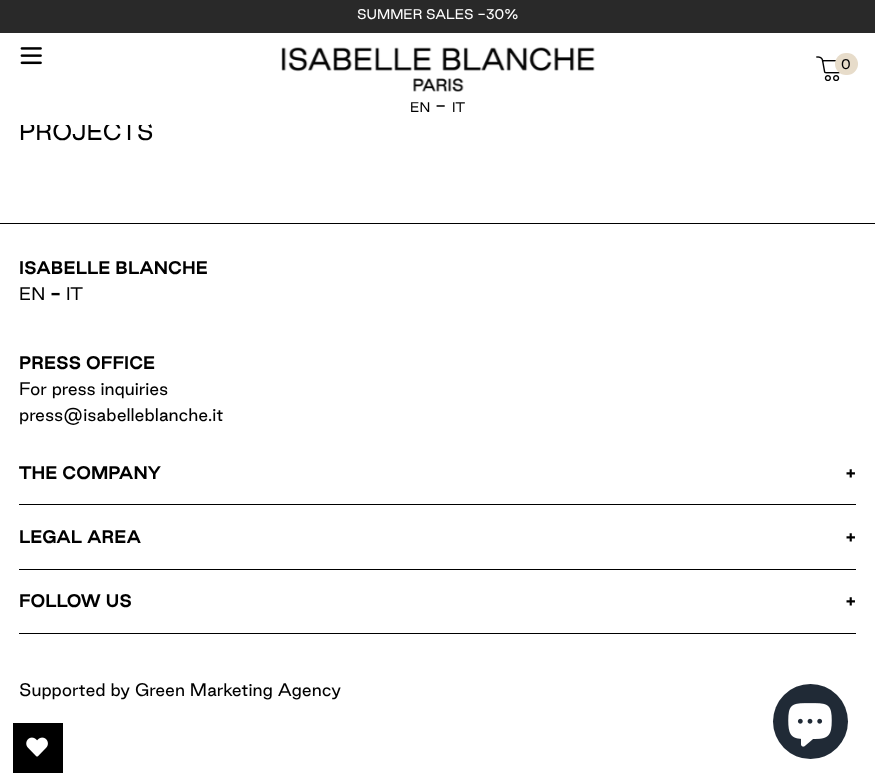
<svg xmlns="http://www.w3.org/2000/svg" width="875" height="784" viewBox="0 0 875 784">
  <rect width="100%" height="100%" fill="rgb(255,255,255)"/>
  <rect x="0" y="0" width="875" height="33" fill="rgb(41,41,41)"/>
  <text x="357" y="19" font-family="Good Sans" font-size="12.5" fill="rgb(255,255,255)">SUMMER SALES -30%</text>
  <image x="20" y="47" width="22" height="18" href="pic1.png"/>
  <text x="19" y="140" font-family="Good Sans" font-size="22" fill="rgb(0,0,0)">PROJECTS</text>
  <rect x="20" y="122" width="130" height="3" fill="rgb(255,255,255)"/>
  <image x="816" y="56" width="24" height="25" href="pic2.png"/>
  <rect x="835" y="53" width="23" height="22" rx="11" fill="rgb(231,220,202)"/>
  <text x="841" y="69" font-family="Good Sans" font-size="12.5" fill="rgb(0,0,0)">0</text>
  <image x="281" y="47" width="314" height="45" href="pic3.png"/>
  <text x="410" y="112" font-family="Good Sans" font-size="12.5" fill="rgb(0,0,0)">EN</text>
  <text x="435" y="112" font-family="Good Sans" font-size="16.25" fill="rgb(0,0,0)">-</text>
  <text x="452" y="112" font-family="Good Sans" font-size="12.5" fill="rgb(0,0,0)">IT</text>
  <rect x="0" y="223" width="875" height="1" fill="rgb(0,0,0)"/>
  <text x="19" y="274" font-family="Good Sans" font-size="16.25" font-weight="bold" fill="rgb(0,0,0)">ISABELLE BLANCHE</text>
  <text x="19" y="300" font-family="Good Sans" font-size="16.25" fill="rgb(0,0,0)">EN</text>
  <text x="50" y="300" font-family="Good Sans" font-size="16.25" font-weight="bold" fill="rgb(0,0,0)">-</text>
  <text x="66" y="300" font-family="Good Sans" font-size="16.25" fill="rgb(0,0,0)">IT</text>
  <text x="19" y="369" font-family="Good Sans" font-size="16.25" font-weight="bold" fill="rgb(0,0,0)">PRESS OFFICE</text>
  <g font-family="Good Sans" font-size="16.25" fill="rgb(0,0,0)">
    <text>
      <tspan x="19" y="395">For press inquiries</tspan>
      <tspan x="19" y="421">press@isabelleblanche.it</tspan>
    </text>
  </g>
  <g font-family="Good Sans" font-size="16.25" font-weight="bold" fill="rgb(0,0,0)">
    <text x="19" y="479">THE COMPANY</text>
    <text x="845" y="479">+</text>
  </g>
  <rect x="19" y="504" width="837" height="1" fill="rgb(0,0,0)"/>
  <g font-family="Good Sans" font-size="16.25" font-weight="bold" fill="rgb(0,0,0)">
    <text x="19" y="543">LEGAL AREA</text>
    <text x="845" y="543">+</text>
  </g>
  <rect x="19" y="569" width="837" height="1" fill="rgb(0,0,0)"/>
  <g font-family="Good Sans" font-size="16.25" font-weight="bold" fill="rgb(0,0,0)">
    <text x="19" y="607">FOLLOW US</text>
    <text x="845" y="607">+</text>
  </g>
  <rect x="19" y="633" width="837" height="1" fill="rgb(0,0,0)"/>
  <text x="19" y="696" font-family="Good Sans" font-size="16.25" fill="rgb(0,0,0)">Supported by Green Marketing Agency</text>
  <rect x="13" y="723" width="50" height="50" fill="rgb(0,0,0)"/>
  <image x="26" y="737" width="22" height="20" href="pic4.png"/>
  <circle cx="810.5" cy="721.5" r="37.5" fill="rgb(32,42,54)"/>
  <image x="788" y="703" width="44" height="44" href="pic5.png"/>
</svg>
